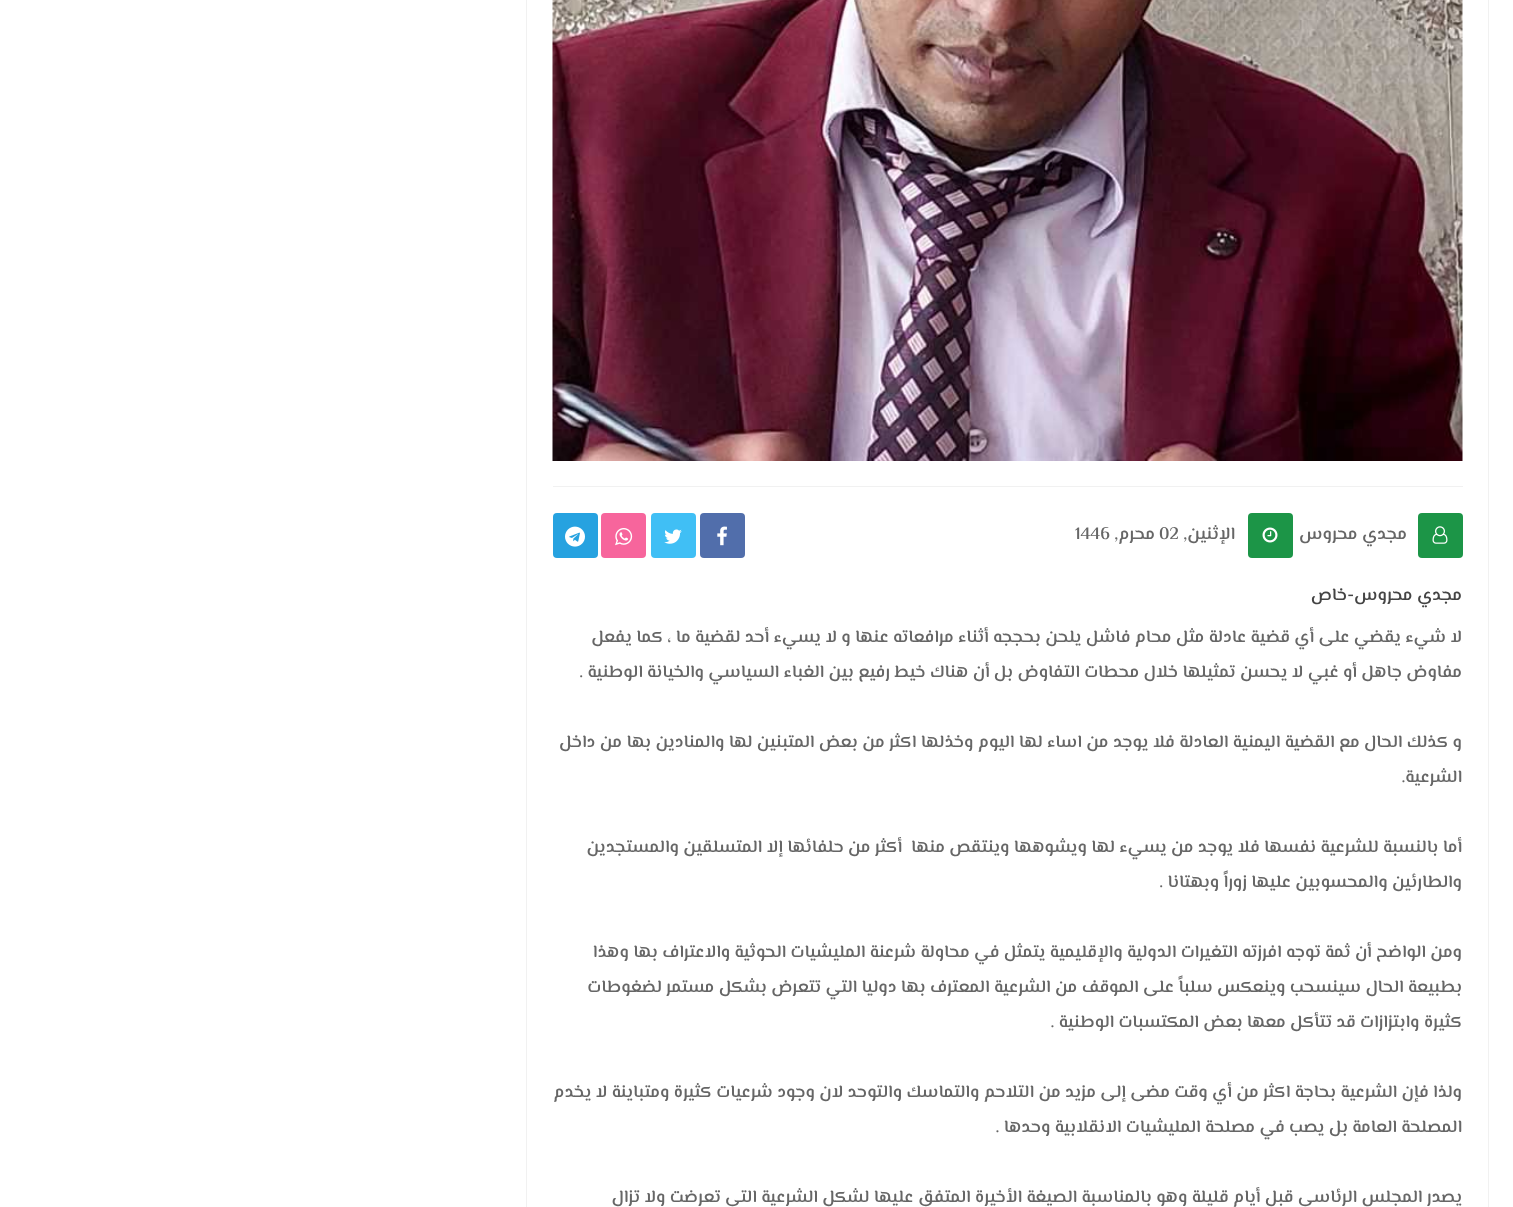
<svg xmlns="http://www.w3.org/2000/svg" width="1513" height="1207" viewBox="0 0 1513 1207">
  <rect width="100%" height="100%" fill="rgb(255,255,255)"/>
  <rect x="526.5" y="-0.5" width="962" height="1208" fill="none" stroke="rgb(241,241,241)"/>
  <image x="552" y="0" width="911" height="461" href="pic1.png"/>
  <rect x="553" y="486" width="910" height="1" fill="rgb(241,241,241)"/>
  <rect x="1418" y="513" width="45" height="45" rx="4" fill="rgb(28,149,71)"/>
  <image x="1432" y="526" width="16" height="18" href="pic2.png"/>
  <text x="1407" y="539" font-family="El Messiri" font-size="17.5" font-weight="600" direction="rtl" fill="rgb(102,102,102)">مجدي محروس</text>
  <rect x="1248" y="513" width="45" height="45" rx="4" fill="rgb(28,149,71)"/>
  <image x="1262" y="527" width="16" height="16" href="pic3.png"/>
  <text x="1235" y="539" font-family="El Messiri" font-size="17.5" font-weight="600" direction="rtl" fill="rgb(102,102,102)">الإثنين,</text>
  <text x="1159" y="539" font-family="El Messiri" font-size="17.5" font-weight="600" fill="rgb(102,102,102)">02</text>
  <text x="1155" y="539" font-family="El Messiri" font-size="17.5" font-weight="600" direction="rtl" fill="rgb(102,102,102)">محرم,</text>
  <text x="1075" y="539" font-family="El Messiri" font-size="17.5" font-weight="600" fill="rgb(102,102,102)">1446</text>
  <rect x="700" y="513" width="45" height="45" rx="4" fill="rgb(81,110,171)"/>
  <image x="717" y="526" width="10" height="20" href="pic4.png"/>
  <rect x="651" y="513" width="45" height="45" rx="4" fill="rgb(64,191,245)"/>
  <image x="664" y="529" width="18" height="15" href="pic5.png"/>
  <rect x="601" y="513" width="45" height="45" rx="4" fill="rgb(247,101,156)"/>
  <image x="615" y="528" width="18" height="18" href="pic6.png"/>
  <rect x="553" y="513" width="45" height="45" rx="4" fill="rgb(38,162,224)"/>
  <image x="565" y="526" width="20" height="21" href="pic7.png"/>
  <text x="1462" y="600" font-family="El Messiri" font-size="17.5" font-weight="600" direction="rtl" fill="rgb(68,68,68)">مجدي محروس-خاص</text>
  <g font-family="El Messiri" font-size="17.5" font-weight="600" direction="rtl" fill="rgb(102,102,102)">
    <text x="1462" y="642">لا شيء يقضي على أي قضية عادلة مثل محام فاشل يلحن بحججه أثناء مرافعاته عنها و لا يسيء أحد لقضية ما ، كما يفعل</text>
    <text x="1462" y="677">مفاوض جاهل أو غبي لا يحسن تمثيلها خلال محطات التفاوض بل أن هناك خيط رفيع بين الغباء السياسي والخيانة الوطنية .</text>
    <text x="1462" y="747">و كذلك الحال مع القضية اليمنية العادلة فلا يوجد من اساء لها اليوم وخذلها اكثر من بعض المتبنين لها والمنادين بها من داخل</text>
    <text x="1462" y="782">الشرعية.</text>
    <text x="1462" y="852" xml:space="preserve">أما بالنسبة للشرعية نفسها فلا يوجد من يسيء لها ويشوهها وينتقص منها  أكثر من حلفائها إلا المتسلقين والمستجدين</text>
    <text x="1462" y="887">والطارئين والمحسوبين عليها زوراً وبهتانا .</text>
    <text x="1462" y="957">ومن الواضح أن ثمة توجه افرزته التغيرات الدولية والإقليمية يتمثل في محاولة شرعنة المليشيات الحوثية والاعتراف بها وهذا</text>
    <text x="1462" y="992">بطبيعة الحال سينسحب وينعكس سلباً على الموقف من الشرعية المعترف بها دوليا التي تتعرض بشكل مستمر لضغوطات</text>
    <text x="1462" y="1027">كثيرة وابتزازات قد تتأكل معها بعض المكتسبات الوطنية .</text>
    <text x="1462" y="1097">ولذا فإن الشرعية بحاجة اكثر من أي وقت مضى إلى مزيد من التلاحم والتماسك والتوحد لان وجود شرعيات كثيرة ومتباينة لا يخدم</text>
    <text x="1462" y="1132">المصلحة العامة بل يصب في مصلحة المليشيات الانقلابية وحدها .</text>
    <text x="1462" y="1202">يصدر المجلس الرئاسي قبل أيام قليلة وهو بالمناسبة الصيغة الأخيرة المتفق عليها لشكل الشرعية التي تعرضت ولا تزال</text>
  </g>
</svg>
